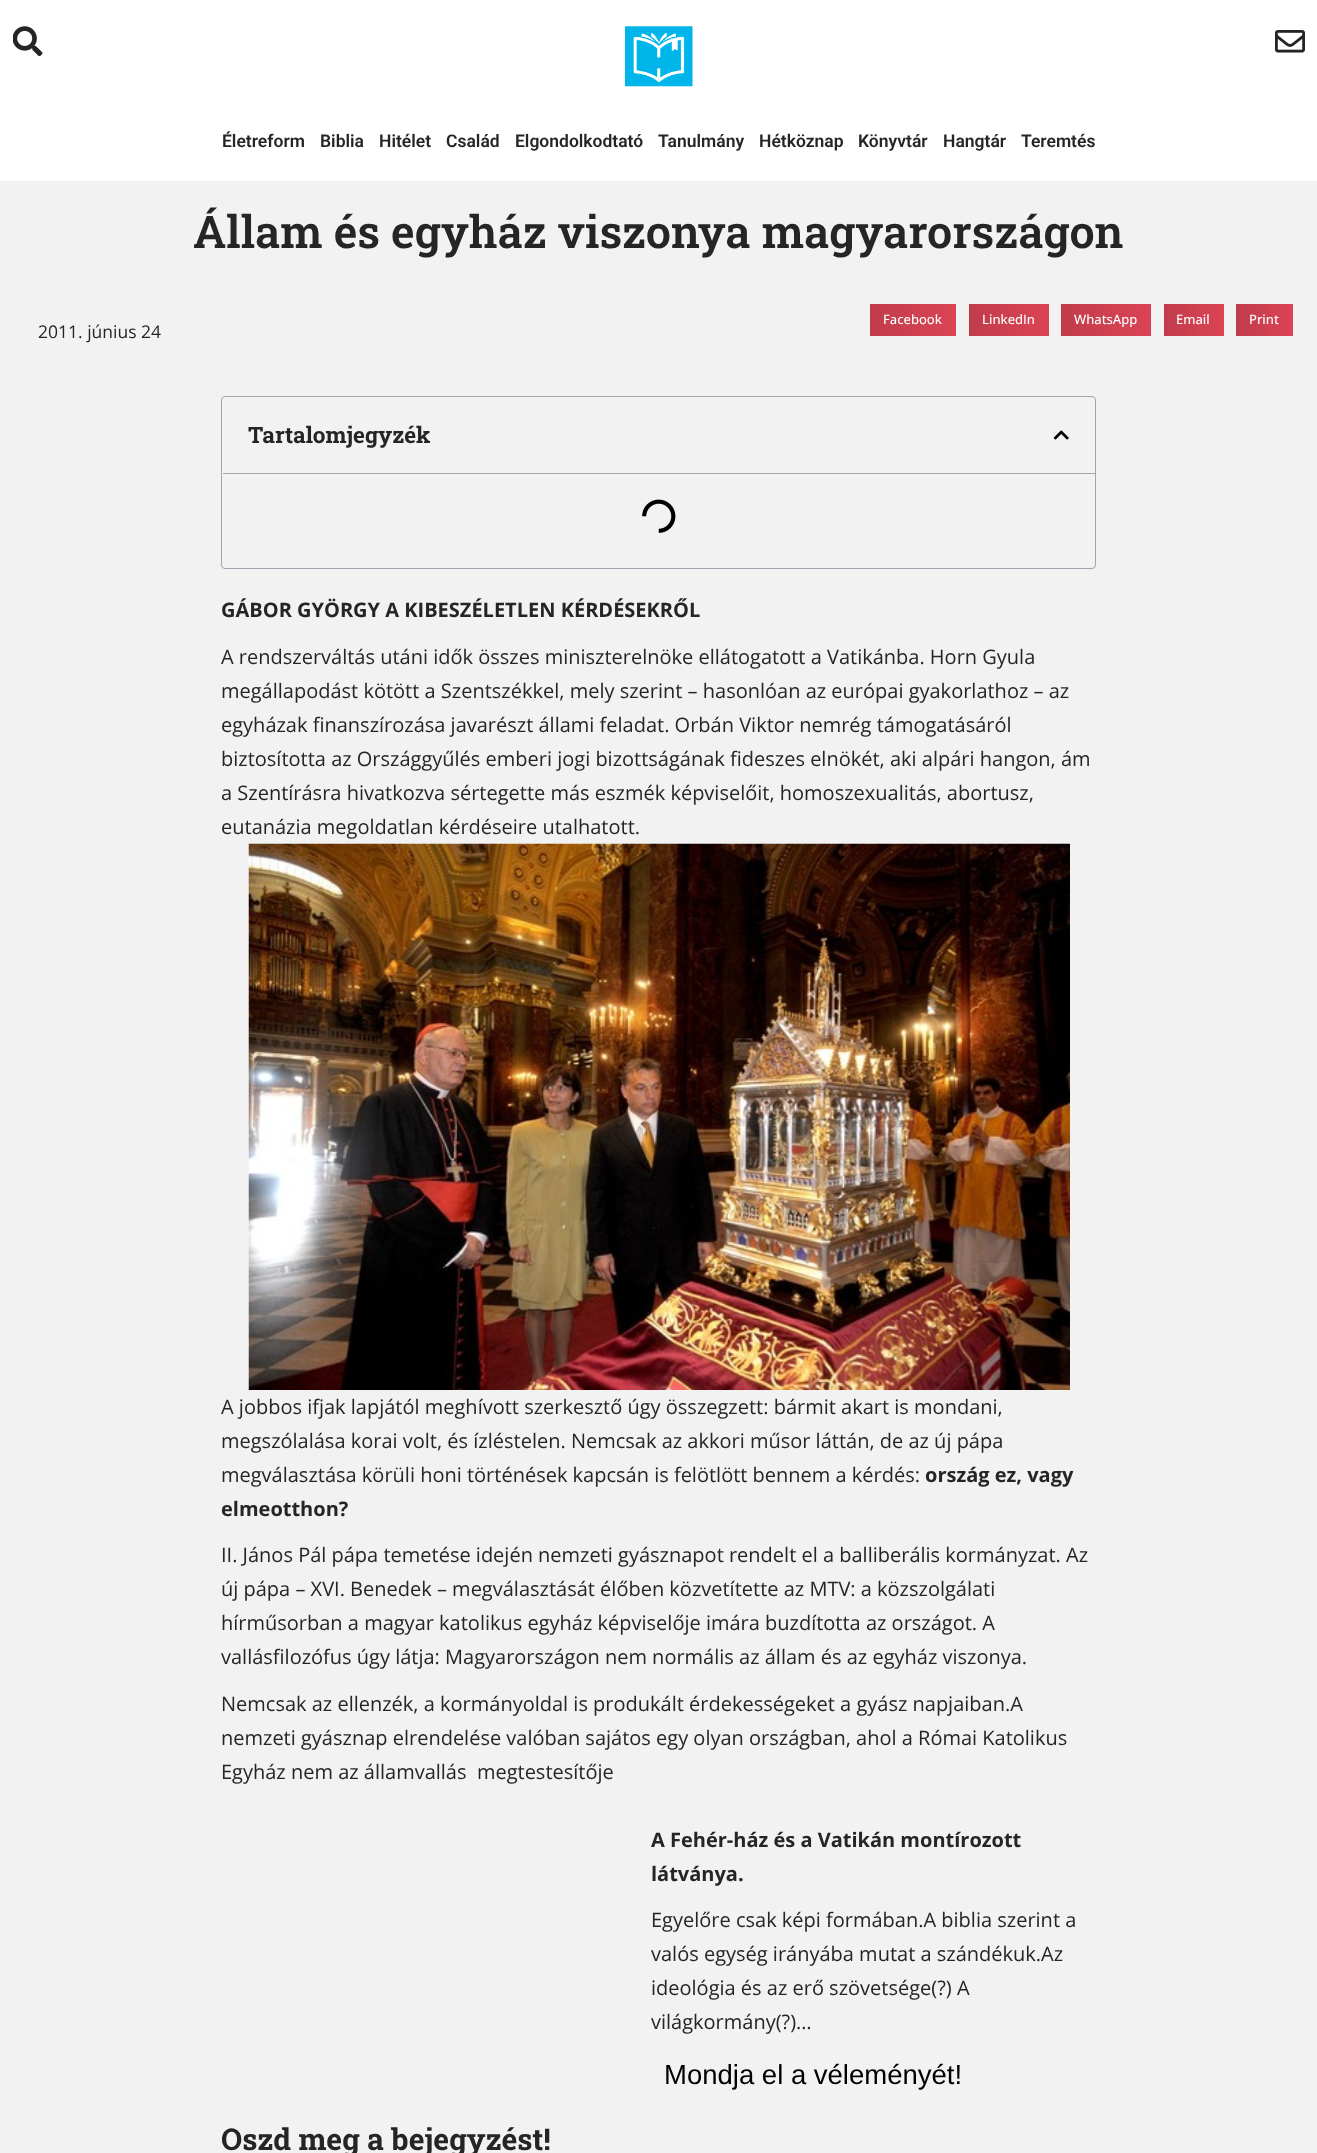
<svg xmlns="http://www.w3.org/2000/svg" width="1317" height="2153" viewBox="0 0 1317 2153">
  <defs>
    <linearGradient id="g1" gradientUnits="userSpaceOnUse" x1="870" y1="320" x2="956" y2="320"><stop offset="0" stop-color="rgb(193,60,75)"/><stop offset="1" stop-color="rgb(219,68,85)"/></linearGradient>
    <linearGradient id="g2" gradientUnits="userSpaceOnUse" x1="969" y1="320" x2="1049" y2="320"><stop offset="0" stop-color="rgb(193,60,75)"/><stop offset="1" stop-color="rgb(219,68,85)"/></linearGradient>
    <linearGradient id="g3" gradientUnits="userSpaceOnUse" x1="1061" y1="320" x2="1151" y2="320"><stop offset="0" stop-color="rgb(193,60,75)"/><stop offset="1" stop-color="rgb(219,68,85)"/></linearGradient>
    <linearGradient id="g4" gradientUnits="userSpaceOnUse" x1="1164" y1="320" x2="1224" y2="320"><stop offset="0" stop-color="rgb(193,60,75)"/><stop offset="1" stop-color="rgb(219,68,85)"/></linearGradient>
    <linearGradient id="g5" gradientUnits="userSpaceOnUse" x1="1236" y1="320" x2="1293" y2="320"><stop offset="0" stop-color="rgb(193,60,75)"/><stop offset="1" stop-color="rgb(219,68,85)"/></linearGradient>
  </defs>
  <rect width="100%" height="100%" fill="rgb(242,242,242)"/>
  <rect x="0" y="0" width="1317" height="181" fill="rgb(255,255,255)"/>
  <image x="13" y="26" width="30" height="30" href="pic1.png"/>
  <image x="625" y="26" width="68" height="61" href="pic2.png"/>
  <image x="1275" y="30" width="30" height="23" href="pic3.png"/>
  <g font-family="Roboto" font-size="17.5" font-weight="600" fill="rgb(37,37,37)">
    <text x="222" y="147">Életreform</text>
    <text x="320" y="147">Biblia</text>
    <text x="379" y="147">Hitélet</text>
    <text x="446" y="147">Család</text>
    <text x="515" y="147">Elgondolkodtató</text>
    <text x="658" y="147">Tanulmány</text>
    <text x="759" y="147">Hétköznap</text>
    <text x="858" y="147">Könyvtár</text>
    <text x="943" y="147">Hangtár</text>
    <text x="1021" y="147">Teremtés</text>
  </g>
  <text x="193" y="248" font-family="Roboto Slab" font-size="45" font-weight="600" fill="rgb(37,37,37)">Állam és egyház viszonya magyarországon</text>
  <rect x="870" y="304" width="86" height="32" fill="url(#g1)"/>
  <text x="883" y="324" font-family="Open Sans" font-size="13" font-weight="500" fill="rgb(255,255,255)">Facebook</text>
  <rect x="969" y="304" width="80" height="32" fill="url(#g2)"/>
  <text x="982" y="324" font-family="Open Sans" font-size="13" font-weight="500" fill="rgb(255,255,255)">LinkedIn</text>
  <rect x="1061" y="304" width="90" height="32" fill="url(#g3)"/>
  <text x="1074" y="324" font-family="Open Sans" font-size="13" font-weight="500" fill="rgb(255,255,255)">WhatsApp</text>
  <rect x="1164" y="304" width="60" height="32" fill="url(#g4)"/>
  <text x="1176" y="324" font-family="Open Sans" font-size="13" font-weight="500" fill="rgb(255,255,255)">Email</text>
  <rect x="1236" y="304" width="57" height="32" fill="url(#g5)"/>
  <text x="1249" y="324" font-family="Open Sans" font-size="13" font-weight="500" fill="rgb(255,255,255)">Print</text>
  <text x="38" y="338" font-family="Open Sans" font-size="17.5" fill="rgb(37,37,37)">2011. június 24</text>
  <rect x="221.5" y="396.5" width="874" height="172" rx="3.5" fill="none" stroke="rgb(157,165,174)"/>
  <rect x="223" y="473" width="872" height="1" fill="rgb(157,165,174)"/>
  <text x="248" y="443" font-family="Roboto Slab" font-size="22.5" font-weight="bold" fill="rgb(37,37,37)">Tartalomjegyzék</text>
  <image x="1053" y="430" width="16" height="10" href="pic4.png"/>
  <image x="642" y="499" width="34" height="34" href="pic5.png"/>
  <text x="221" y="617" font-family="Open Sans" font-size="20" font-weight="bold" fill="rgb(37,37,37)">GÁBOR GYÖRGY A KIBESZÉLETLEN KÉRDÉSEKRŐL</text>
  <g font-family="Open Sans" font-size="20" fill="rgb(37,37,37)">
    <text>
      <tspan x="221" y="664">A rendszerváltás utáni idők összes miniszterelnöke ellátogatott a Vatikánba. Horn Gyula</tspan>
      <tspan x="221" y="698">megállapodást kötött a Szentszékkel, mely szerint – hasonlóan az európai gyakorlathoz – az</tspan>
      <tspan x="221" y="732">egyházak finanszírozása javarészt állami feladat. Orbán Viktor nemrég támogatásáról</tspan>
      <tspan x="221" y="766">biztosította az Országgyűlés emberi jogi bizottságának fideszes elnökét, aki alpári hangon, ám</tspan>
      <tspan x="221" y="800">a Szentírásra hivatkozva sértegette más eszmék képviselőit, homoszexualitás, abortusz,</tspan>
      <tspan x="221" y="834">eutanázia megoldatlan kérdéseire utalhatott.</tspan>
    </text>
  </g>
  <image x="248" y="843" width="822" height="547" href="pic6.png"/>
  <g font-family="Open Sans" font-size="20" fill="rgb(37,37,37)">
    <text>
      <tspan x="221" y="1414">A jobbos ifjak lapjától meghívott szerkesztő úgy összegzett: bármit akart is mondani,</tspan>
      <tspan x="221" y="1448">megszólalása korai volt, és ízléstelen. Nemcsak az akkori műsor láttán, de az új pápa</tspan>
      <tspan x="221" y="1482">megválasztása körüli honi történések kapcsán is felötlött bennem a kérdés:</tspan>
    </text>
  </g>
  <g font-family="Open Sans" font-size="20" font-weight="bold" fill="rgb(37,37,37)">
    <text x="925" y="1482">ország ez, vagy</text>
    <text x="221" y="1516">elmeotthon?</text>
  </g>
  <g font-family="Open Sans" font-size="20" fill="rgb(37,37,37)">
    <text>
      <tspan x="221" y="1562">II. János Pál pápa temetése idején nemzeti gyásznapot rendelt el a balliberális kormányzat. Az</tspan>
      <tspan x="221" y="1596">új pápa – XVI. Benedek – megválasztását élőben közvetítette az MTV: a közszolgálati</tspan>
      <tspan x="221" y="1630">hírműsorban a magyar katolikus egyház képviselője imára buzdította az országot. A</tspan>
      <tspan x="221" y="1664">vallásfilozófus úgy látja: Magyarországon nem normális az állam és az egyház viszonya.</tspan>
    </text>
    <text xml:space="preserve"><tspan x="221" y="1711">Nemcsak az ellenzék, a kormányoldal is produkált érdekességeket a gyász napjaiban.A</tspan><tspan x="221" y="1745">nemzeti gyásznap elrendelése valóban sajátos egy olyan országban, ahol a Római Katolikus</tspan><tspan x="221" y="1779">Egyház nem az államvallás  megtestesítője</tspan></text>
  </g>
  <g font-family="Open Sans" font-size="20" font-weight="bold" fill="rgb(37,37,37)">
    <text>
      <tspan x="651" y="1847">A Fehér-ház és a Vatikán montírozott</tspan>
      <tspan x="651" y="1881">látványa.</tspan>
    </text>
  </g>
  <g font-family="Open Sans" font-size="20" fill="rgb(37,37,37)">
    <text>
      <tspan x="651" y="1927">Egyelőre csak képi formában.A biblia szerint a</tspan>
      <tspan x="651" y="1961">valós egység irányába mutat a szándékuk.Az</tspan>
      <tspan x="651" y="1995">ideológia és az erő szövetsége(?) A</tspan>
      <tspan x="651" y="2029">világkormány(?)…</tspan>
    </text>
  </g>
  <text x="664" y="2084" font-family="Liberation Sans" font-size="27.5" fill="rgb(0,0,0)">Mondja el a véleményét!</text>
  <text x="221" y="2150" font-family="Roboto Slab" font-size="30" font-weight="bold" fill="rgb(37,37,37)">Oszd meg a bejegyzést!</text>
</svg>
